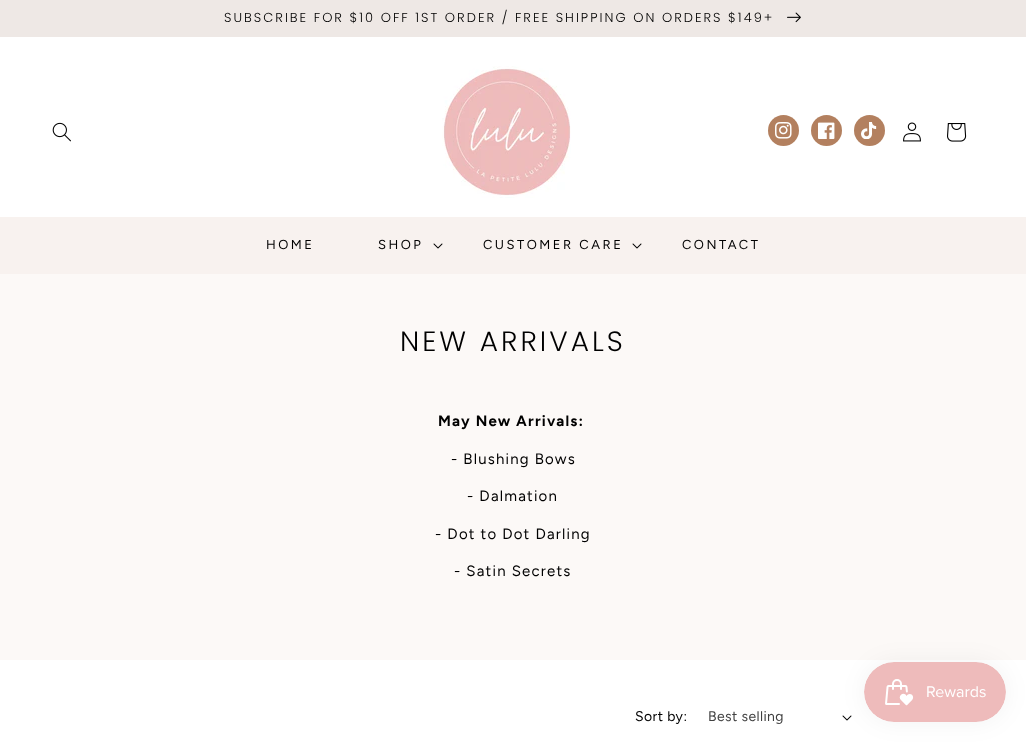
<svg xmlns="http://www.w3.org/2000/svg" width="1026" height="742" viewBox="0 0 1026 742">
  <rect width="100%" height="100%" fill="rgb(255,255,255)"/>
  <rect x="0" y="0" width="1026" height="37" fill="rgb(238,232,229)"/>
  <text x="224" y="22" font-family="Poppins" font-size="13" font-weight="300" letter-spacing="2" fill="rgb(0,0,0)">SUBSCRIBE FOR $10 OFF 1ST ORDER / FREE SHIPPING ON ORDERS $149+</text>
  <image x="787" y="12" width="14" height="11" href="pic1.png"/>
  <image x="52" y="122" width="19" height="20" href="pic2.png"/>
  <image x="442" y="66" width="129" height="132" href="pic3.png"/>
  <circle cx="783.5" cy="130.5" r="15.5" fill="rgb(179,128,95)"/>
  <image x="775" y="122" width="17" height="17" href="pic4.png"/>
  <circle cx="826.5" cy="130.5" r="15.5" fill="rgb(179,128,95)"/>
  <image x="818" y="122" width="17" height="17" href="pic5.png"/>
  <circle cx="869.5" cy="130.5" r="15.5" fill="rgb(179,128,95)"/>
  <image x="861" y="122" width="16" height="17" href="pic6.png"/>
  <image x="903" y="122" width="18" height="20" href="pic7.png"/>
  <image x="947" y="123" width="20" height="19" href="pic8.png"/>
  <rect x="0" y="217" width="1026" height="57" fill="rgb(248,242,239)"/>
  <g font-family="Figtree" font-size="13" letter-spacing="2.5" fill="rgb(0,0,0)">
    <text x="266" y="249">HOME</text>
    <text x="378" y="249">SHOP</text>
  </g>
  <image x="433" y="243" width="10" height="6" href="pic9.png"/>
  <text x="483" y="249" font-family="Figtree" font-size="13" letter-spacing="2.5" fill="rgb(0,0,0)">CUSTOMER CARE</text>
  <image x="632" y="243" width="10" height="6" href="pic9.png"/>
  <text x="682" y="249" font-family="Figtree" font-size="13" letter-spacing="2.5" fill="rgb(0,0,0)">CONTACT</text>
  <rect x="0" y="274" width="1026" height="386" fill="rgb(252,249,247)"/>
  <text x="400" y="351" font-family="Poppins" font-size="28" font-weight="300" letter-spacing="3" fill="rgb(0,0,0)">NEW ARRIVALS</text>
  <text x="438" y="426" font-family="Figtree" font-size="15" font-weight="bold" letter-spacing="1.2" fill="rgb(0,0,0)">May New Arrivals:</text>
  <g font-family="Figtree" font-size="15" letter-spacing="1.2" fill="rgb(0,0,0)">
    <text x="451" y="464">- Blushing Bows</text>
    <text x="467" y="501">- Dalmation</text>
    <text x="435" y="539">- Dot to Dot Darling</text>
    <text x="454" y="576">- Satin Secrets</text>
  </g>
  <text x="635" y="721" font-family="Figtree" font-size="14" letter-spacing="0.4" fill="rgb(0,0,0)">Sort by:</text>
  <text x="708" y="721" font-family="Figtree" font-size="14" letter-spacing="0.4" fill="rgb(64,64,64)">Best selling</text>
  <image x="842" y="715" width="10" height="6" href="pic10.png"/>
  <rect x="864" y="662" width="142" height="60" rx="30" fill="rgba(0,0,0,0.05)" filter="blur(12.5px)"/>
  <image x="864" y="662" width="142" height="60" href="pic11.png"/>
</svg>
